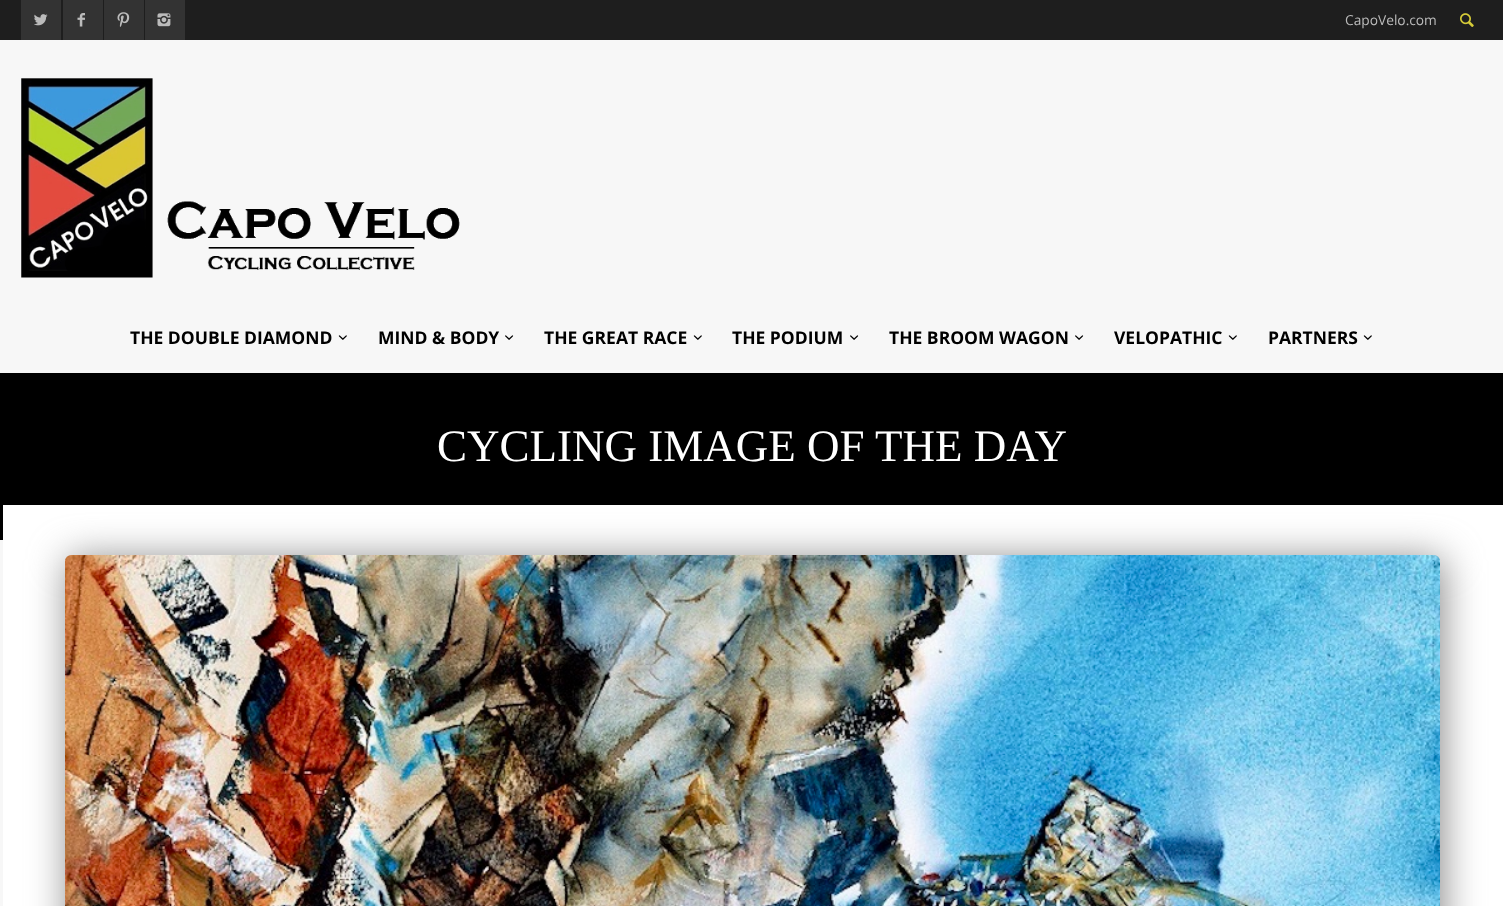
<svg xmlns="http://www.w3.org/2000/svg" width="1503" height="906" viewBox="0 0 1503 906">
  <rect width="100%" height="100%" fill="rgb(247,247,247)"/>
  <rect x="0" y="0" width="1503" height="40" fill="rgb(30,30,30)"/>
  <rect x="21" y="0" width="40" height="40" fill="rgb(51,51,51)"/>
  <image x="34" y="14" width="14" height="12" href="pic1.png"/>
  <rect x="63" y="0" width="40" height="40" fill="rgb(51,51,51)"/>
  <image x="77" y="13" width="8" height="14" href="pic2.png"/>
  <rect x="104" y="0" width="40" height="40" fill="rgb(51,51,51)"/>
  <image x="117" y="12" width="13" height="15" href="pic3.png"/>
  <rect x="145" y="0" width="40" height="40" fill="rgb(51,51,51)"/>
  <image x="157" y="13" width="14" height="14" href="pic4.png"/>
  <text x="1345" y="25" font-family="Open Sans" font-size="13.75" fill="rgb(187,187,187)">CapoVelo.com</text>
  <image x="1460" y="13" width="14" height="14" href="pic5.png"/>
  <image x="21" y="78" width="439" height="200" href="pic6.png"/>
  <text x="130" y="344" font-family="Open Sans" font-size="17.5" font-weight="bold" fill="rgb(0,0,0)">THE DOUBLE DIAMOND</text>
  <image x="338" y="335" width="9" height="5" href="pic7.png"/>
  <text x="378" y="344" font-family="Open Sans" font-size="17.5" font-weight="bold" fill="rgb(0,0,0)">MIND &amp; BODY</text>
  <image x="505" y="335" width="9" height="5" href="pic8.png"/>
  <text x="544" y="344" font-family="Open Sans" font-size="17.5" font-weight="bold" fill="rgb(0,0,0)">THE GREAT RACE</text>
  <image x="693" y="335" width="9" height="5" href="pic7.png"/>
  <text x="732" y="344" font-family="Open Sans" font-size="17.5" font-weight="bold" fill="rgb(0,0,0)">THE PODIUM</text>
  <image x="850" y="335" width="9" height="5" href="pic8.png"/>
  <text x="889" y="344" font-family="Open Sans" font-size="17.5" font-weight="bold" fill="rgb(0,0,0)">THE BROOM WAGON</text>
  <image x="1075" y="335" width="9" height="5" href="pic8.png"/>
  <text x="1114" y="344" font-family="Open Sans" font-size="17.5" font-weight="bold" fill="rgb(0,0,0)">VELOPATHIC</text>
  <image x="1228" y="335" width="9" height="5" href="pic7.png"/>
  <text x="1268" y="344" font-family="Open Sans" font-size="17.5" font-weight="bold" fill="rgb(0,0,0)">PARTNERS</text>
  <image x="1363" y="335" width="9" height="5" href="pic7.png"/>
  <rect x="0" y="373" width="1503" height="167" fill="rgb(0,0,0)"/>
  <text x="437" y="461" font-family="Liberation Serif" font-size="45" fill="rgb(255,255,255)">CYCLING IMAGE OF THE DAY</text>
  <rect x="3" y="505" width="1500" height="401" fill="rgb(255,255,255)"/>
  <rect x="68" y="558" width="1375" height="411" rx="6" fill="rgb(136,136,136)" filter="blur(19px)"/>
  <image x="65" y="555" width="1375" height="351" href="pic9.png"/>
</svg>
